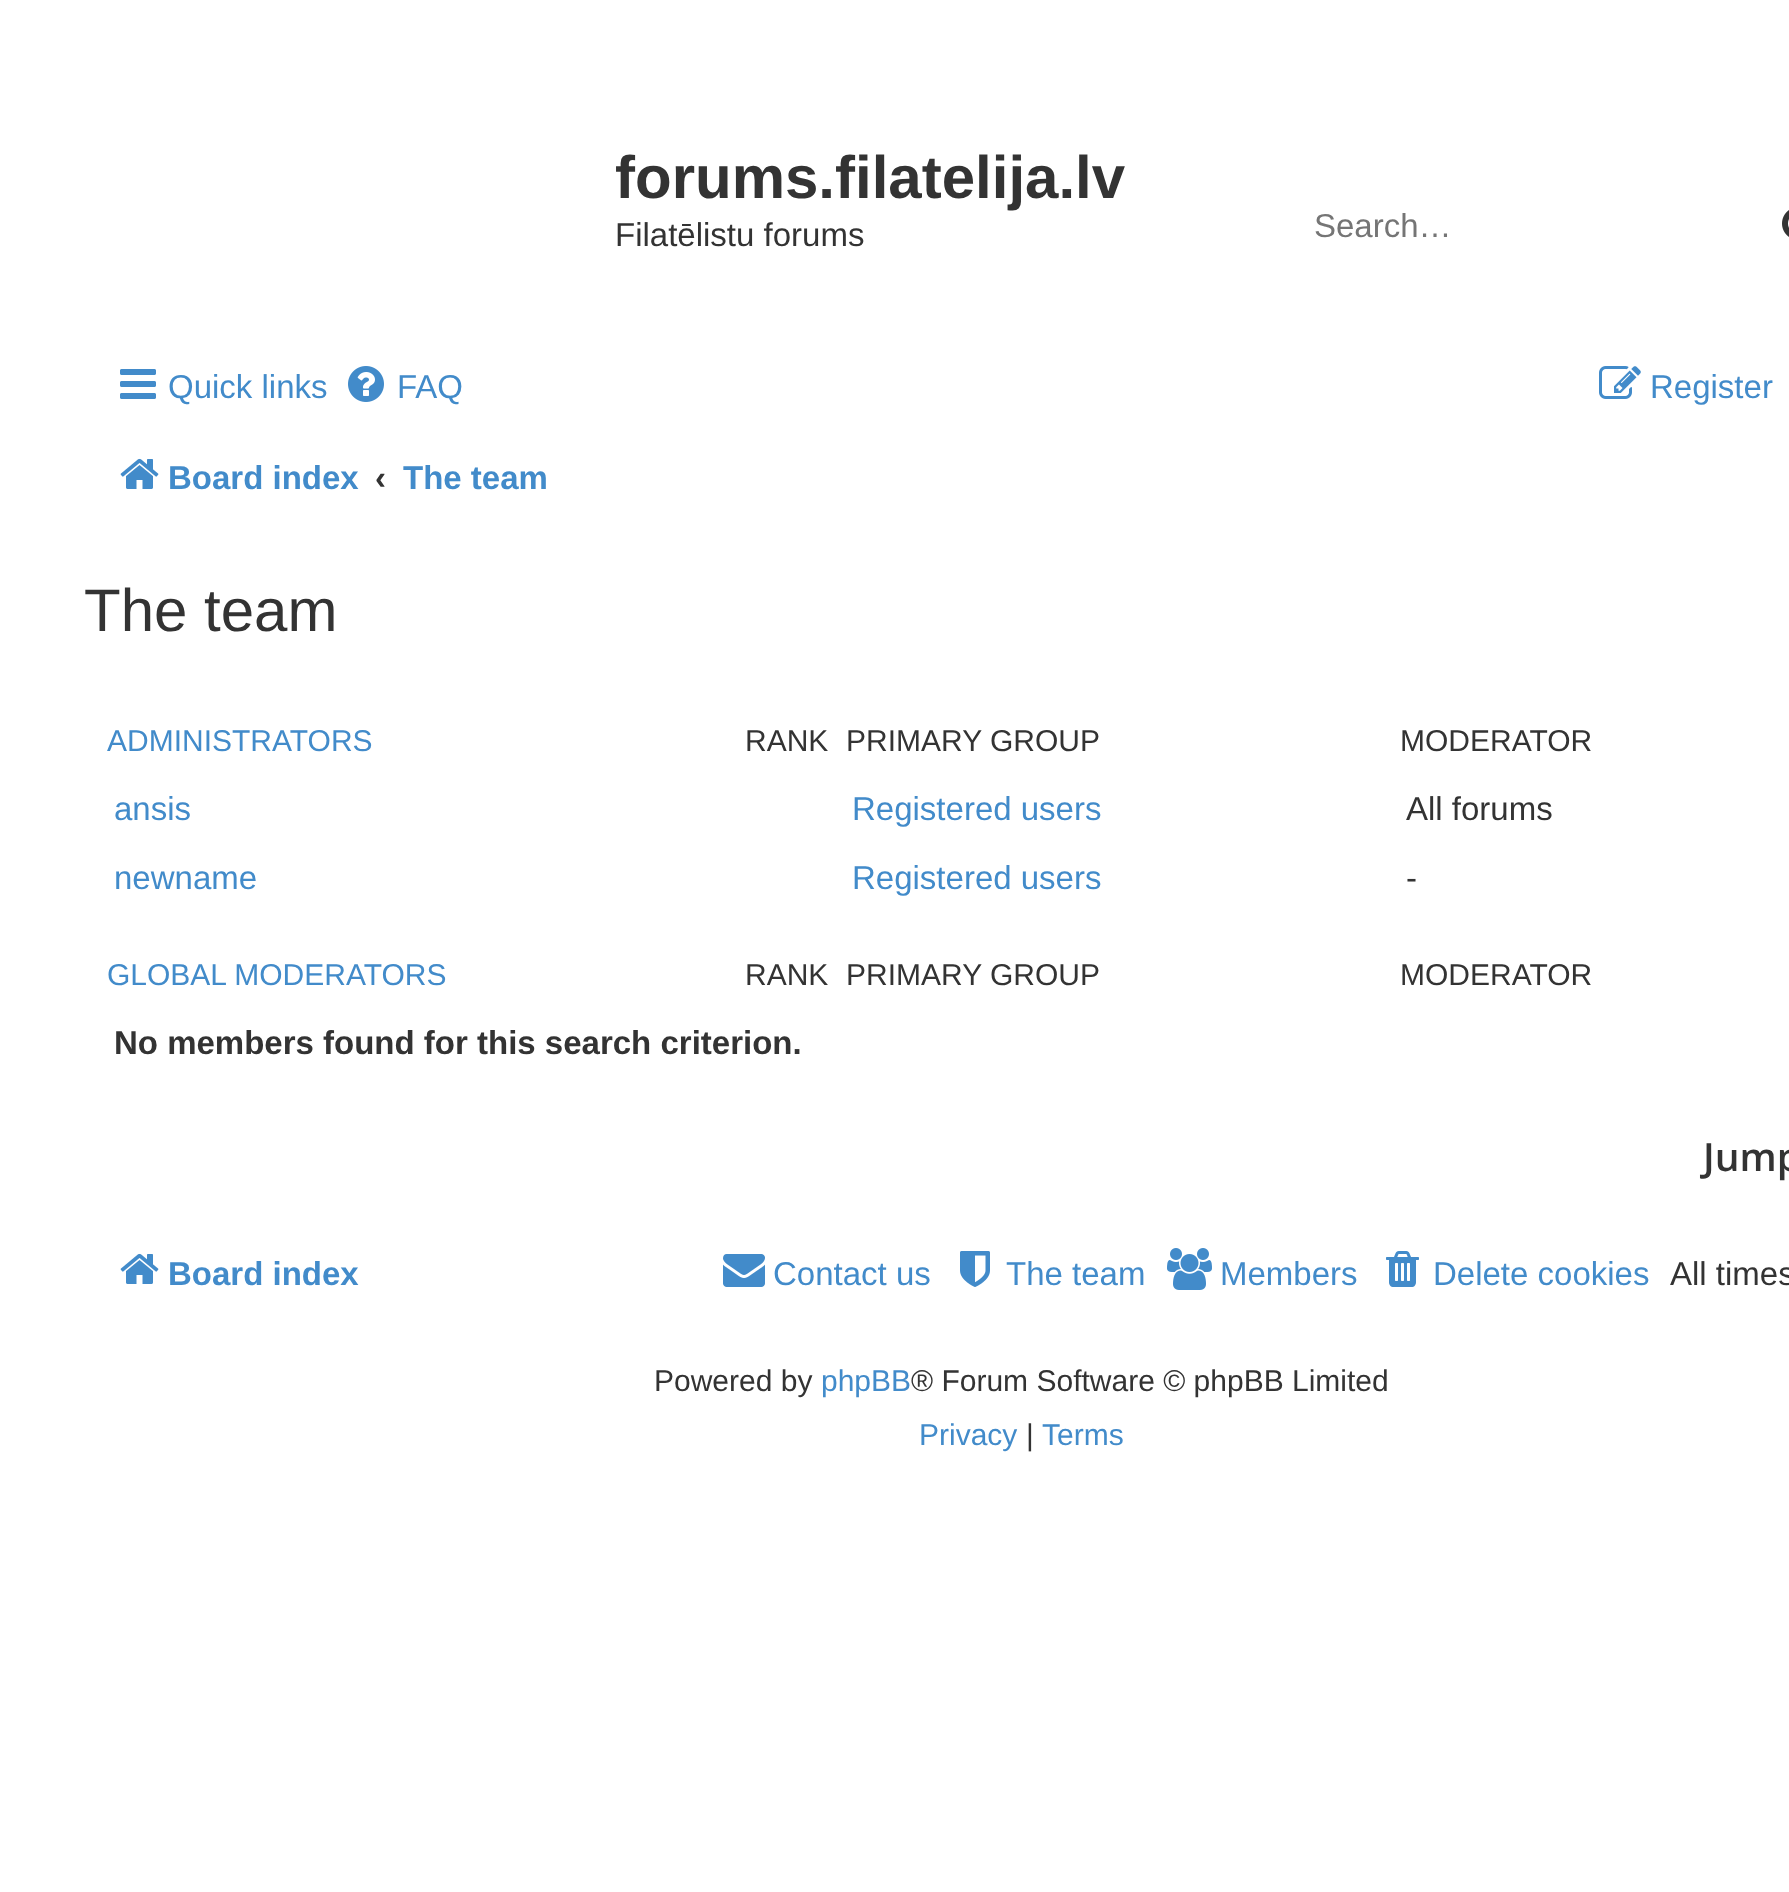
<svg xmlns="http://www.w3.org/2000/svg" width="1789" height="1892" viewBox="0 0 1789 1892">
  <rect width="100%" height="100%" fill="rgb(255,255,255)"/>
  <text x="615" y="198" font-family="Liberation Sans" font-size="60" font-weight="bold" fill="rgb(51,51,51)">forums.filatelija.lv</text>
  <text x="615" y="246" font-family="Liberation Sans" font-size="33" fill="rgb(51,51,51)">Filatēlistu forums</text>
  <text x="1314" y="237" font-family="Liberation Sans" font-size="33" fill="rgb(117,117,117)">Search…</text>
  <image x="1782" y="210" width="7" height="27" href="pic1.png"/>
  <image x="120" y="369" width="36" height="30" href="pic2.png"/>
  <text x="168" y="398" font-family="Liberation Sans" font-size="33" fill="rgb(66,139,202)">Quick links</text>
  <image x="348" y="366" width="36" height="36" href="pic3.png"/>
  <text x="397" y="398" font-family="Liberation Sans" font-size="33" fill="rgb(66,139,202)">FAQ</text>
  <image x="1599" y="366" width="42" height="33" href="pic4.png"/>
  <text x="1650" y="398" font-family="Liberation Sans" font-size="33" fill="rgb(66,139,202)">Register</text>
  <image x="120" y="458" width="39" height="31" href="pic5.png"/>
  <text x="168" y="489" font-family="Liberation Sans" font-size="33" font-weight="bold" fill="rgb(66,139,202)">Board index</text>
  <text x="375" y="489" font-family="Liberation Sans" font-size="33" font-weight="bold" fill="rgb(51,51,51)">‹</text>
  <text x="403" y="489" font-family="Liberation Sans" font-size="33" font-weight="bold" fill="rgb(66,139,202)">The team</text>
  <text x="84" y="631" font-family="Liberation Sans" font-size="60" fill="rgb(51,51,51)">The team</text>
  <text x="107" y="751" font-family="Liberation Sans" font-size="30" fill="rgb(66,139,202)">ADMINISTRATORS</text>
  <g font-family="Liberation Sans" font-size="30" fill="rgb(51,51,51)">
    <text x="745" y="751">RANK</text>
    <text x="846" y="751">PRIMARY GROUP</text>
    <text x="1400" y="751">MODERATOR</text>
  </g>
  <g font-family="Liberation Sans" font-size="33" fill="rgb(66,139,202)">
    <text x="114" y="820">ansis</text>
    <text x="852" y="820">Registered users</text>
  </g>
  <text x="1406" y="820" font-family="Liberation Sans" font-size="33" fill="rgb(51,51,51)">All forums</text>
  <g font-family="Liberation Sans" font-size="33" fill="rgb(66,139,202)">
    <text x="114" y="889">newname</text>
    <text x="852" y="889">Registered users</text>
  </g>
  <text x="1406" y="889" font-family="Liberation Sans" font-size="33" fill="rgb(51,51,51)">-</text>
  <text x="107" y="985" font-family="Liberation Sans" font-size="30" fill="rgb(66,139,202)">GLOBAL MODERATORS</text>
  <g font-family="Liberation Sans" font-size="30" fill="rgb(51,51,51)">
    <text x="745" y="985">RANK</text>
    <text x="846" y="985">PRIMARY GROUP</text>
    <text x="1400" y="985">MODERATOR</text>
  </g>
  <text x="114" y="1054" font-family="Liberation Sans" font-size="33" font-weight="bold" fill="rgb(51,51,51)">No members found for this search criterion.</text>
  <text x="1703" y="1171" font-family="Open Sans" font-size="39" font-weight="600" fill="rgb(51,51,51)">Jump</text>
  <image x="120" y="1253" width="39" height="31" href="pic5.png"/>
  <text x="168" y="1285" font-family="Liberation Sans" font-size="33" font-weight="bold" fill="rgb(66,139,202)">Board index</text>
  <image x="723" y="1254" width="42" height="33" href="pic6.png"/>
  <text x="773" y="1285" font-family="Liberation Sans" font-size="33" fill="rgb(66,139,202)">Contact us</text>
  <image x="960" y="1251" width="30" height="36" href="pic7.png"/>
  <text x="1006" y="1285" font-family="Liberation Sans" font-size="33" fill="rgb(66,139,202)">The team</text>
  <image x="1167" y="1248" width="45" height="42" href="pic8.png"/>
  <text x="1220" y="1285" font-family="Liberation Sans" font-size="33" fill="rgb(66,139,202)">Members</text>
  <image x="1386" y="1251" width="33" height="36" href="pic9.png"/>
  <text x="1433" y="1285" font-family="Liberation Sans" font-size="33" fill="rgb(66,139,202)">Delete cookies</text>
  <text x="1670" y="1285" font-family="Liberation Sans" font-size="33" fill="rgb(51,51,51)">All times</text>
  <text x="654" y="1391" font-family="Liberation Sans" font-size="30" fill="rgb(51,51,51)">Powered by</text>
  <text x="821" y="1391" font-family="Liberation Sans" font-size="30" fill="rgb(66,139,202)">phpBB</text>
  <text x="911" y="1391" font-family="Liberation Sans" font-size="30" fill="rgb(51,51,51)">® Forum Software © phpBB Limited</text>
  <text x="919" y="1445" font-family="Liberation Sans" font-size="30" fill="rgb(66,139,202)">Privacy</text>
  <text x="1026" y="1445" font-family="Liberation Sans" font-size="30" fill="rgb(51,51,51)">|</text>
  <text x="1042" y="1445" font-family="Liberation Sans" font-size="30" fill="rgb(66,139,202)">Terms</text>
</svg>
